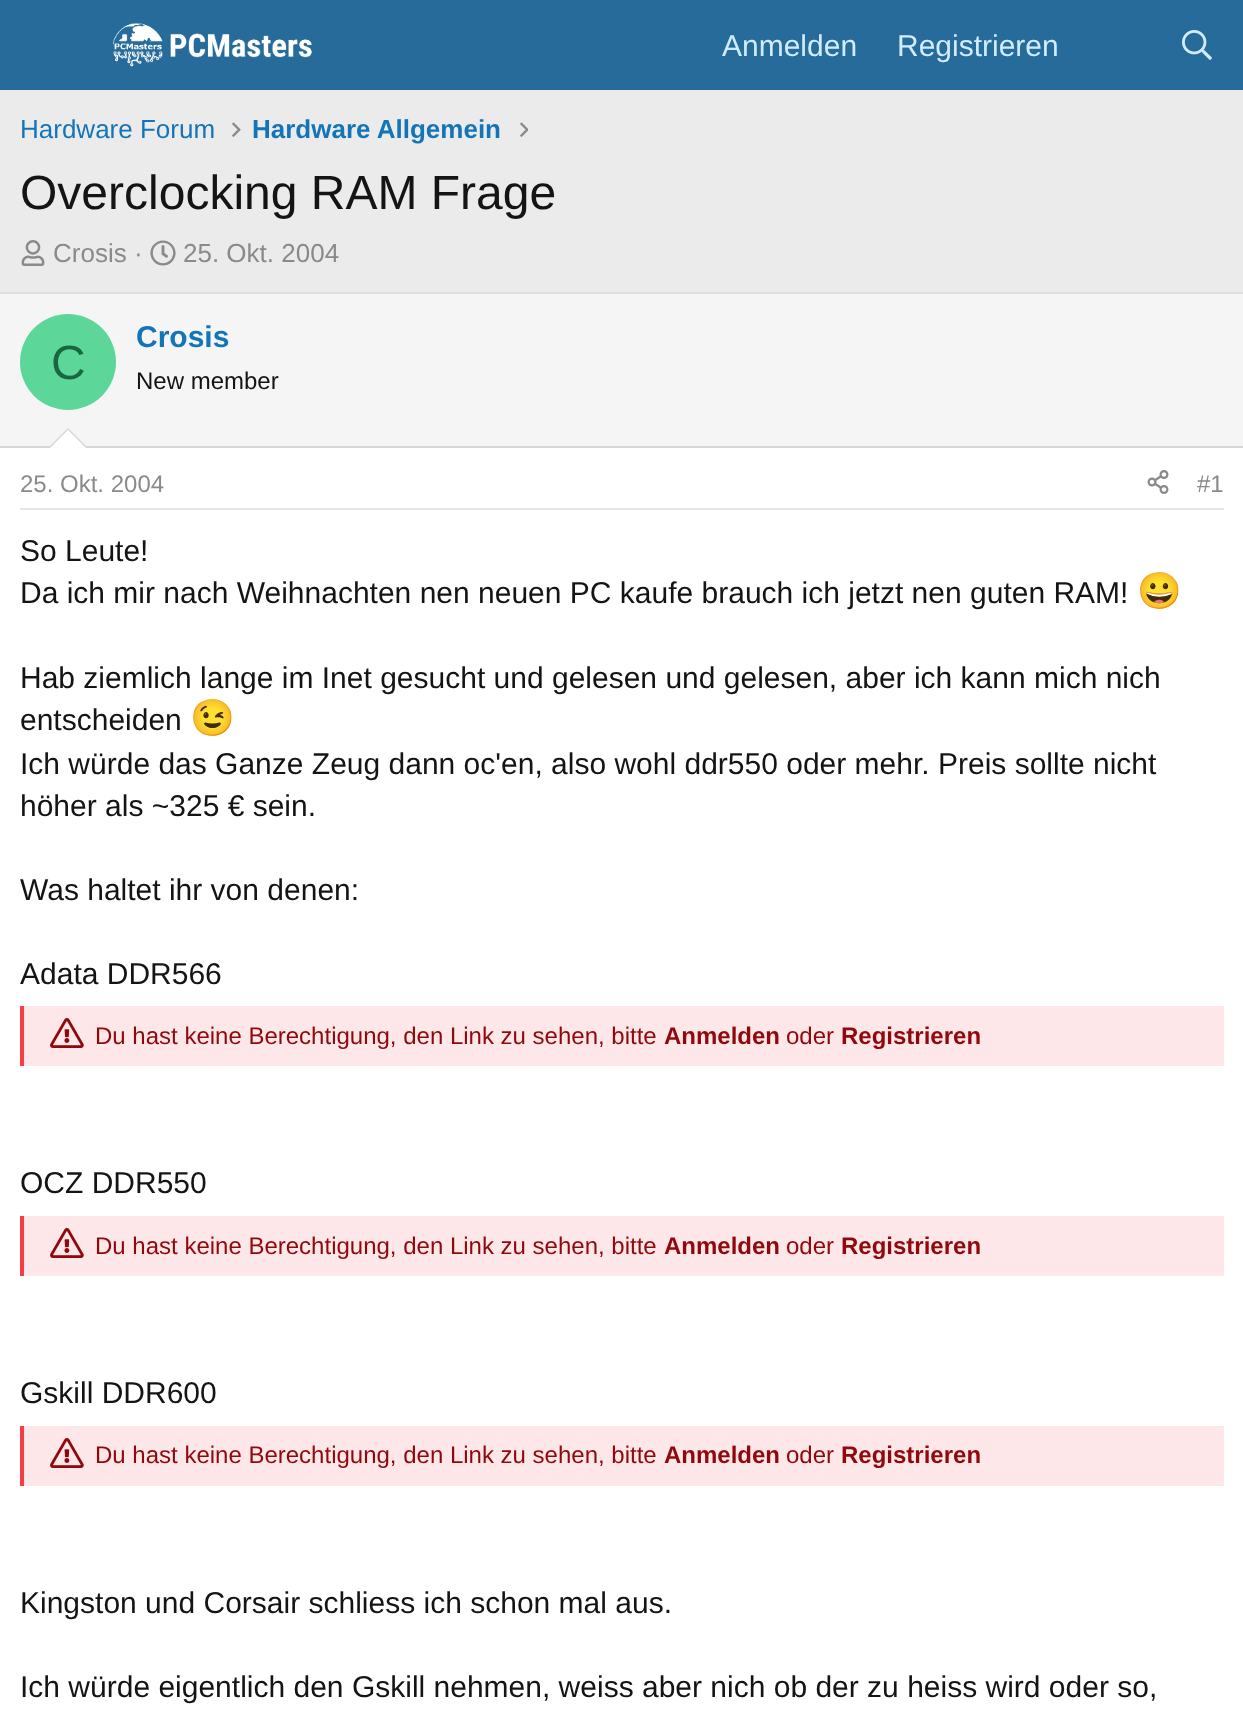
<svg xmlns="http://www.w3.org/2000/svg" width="1243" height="1722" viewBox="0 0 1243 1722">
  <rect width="100%" height="100%" fill="rgb(235,235,235)"/>
  <rect x="0" y="0" width="1243" height="90" fill="rgb(39,107,155)"/>
  <image x="113" y="23" width="199" height="44" href="pic1.png"/>
  <g font-family="Liberation Sans" font-size="30" fill="rgb(209,235,255)">
    <text x="722" y="56">Anmelden</text>
    <text x="897" y="56">Registrieren</text>
  </g>
  <image x="1182" y="30" width="30" height="30" href="pic2.png"/>
  <text x="20" y="138" font-family="Liberation Sans" font-size="26" fill="rgb(20,116,184)">Hardware Forum</text>
  <image x="232" y="122" width="9" height="15" href="pic3.png"/>
  <text x="252" y="138" font-family="Liberation Sans" font-size="26" font-weight="bold" fill="rgb(20,116,184)">Hardware Allgemein</text>
  <image x="520" y="122" width="8" height="15" href="pic4.png"/>
  <text x="20" y="209" font-family="Liberation Sans" font-size="48" fill="rgb(20,20,20)">Overclocking RAM Frage</text>
  <image x="21" y="240" width="24" height="26" href="pic5.png"/>
  <text x="53" y="262" font-family="Liberation Sans" font-size="26" fill="rgb(138,138,138)">Crosis ·</text>
  <image x="150" y="240" width="26" height="26" href="pic6.png"/>
  <text x="183" y="262" font-family="Liberation Sans" font-size="26" fill="rgb(138,138,138)">25. Okt. 2004</text>
  <rect x="0" y="448" width="1243" height="1274" fill="rgb(255,255,255)"/>
  <rect x="0" y="292" width="1243" height="2" fill="rgb(224,224,224)"/>
  <rect x="0" y="294" width="1243" height="152" fill="rgb(245,245,245)"/>
  <rect x="0" y="446" width="1243" height="2" fill="rgb(214,214,214)"/>
  <circle cx="68" cy="362" r="48" fill="rgb(92,214,153)"/>
  <text x="51" y="379" font-family="Liberation Sans" font-size="48" fill="rgb(26,102,64)">C</text>
  <text x="136" y="347" font-family="Liberation Sans" font-size="30" font-weight="bold" fill="rgb(20,116,184)">Crosis</text>
  <text x="136" y="389" font-family="Liberation Sans" font-size="24" fill="rgb(20,20,20)">New member</text>
  <path d="M88 448H48L68 428Z" fill="rgb(214,214,214)"/>
  <path d="M86 448H50L68 430Z" fill="rgb(255,255,255)"/>
  <rect x="20" y="508" width="1204" height="2" fill="rgb(230,230,230)"/>
  <text x="20" y="492" font-family="Liberation Sans" font-size="24" fill="rgb(138,138,138)">25. Okt. 2004</text>
  <image x="1147" y="470" width="22" height="24" href="pic7.png"/>
  <text x="1197" y="492" font-family="Liberation Sans" font-size="24" fill="rgb(138,138,138)">#1</text>
  <g font-family="Liberation Sans" font-size="30" fill="rgb(20,20,20)">
    <text>
      <tspan x="20" y="561">So Leute!</tspan>
      <tspan x="20" y="603">Da ich mir nach Weihnachten nen neuen PC kaufe brauch ich jetzt nen guten RAM!</tspan>
    </text>
  </g>
  <text x="1137" y="603" font-family="Noto Color Emoji" font-size="36" fill="rgb(20,20,20)">😀</text>
  <g font-family="Liberation Sans" font-size="30" fill="rgb(20,20,20)">
    <text>
      <tspan x="20" y="688">Hab ziemlich lange im Inet gesucht und gelesen und gelesen, aber ich kann mich nich</tspan>
      <tspan x="20" y="730">entscheiden</tspan>
    </text>
  </g>
  <text x="190" y="730" font-family="Noto Color Emoji" font-size="36" fill="rgb(20,20,20)">😉</text>
  <g font-family="Liberation Sans" font-size="30" fill="rgb(20,20,20)">
    <text>
      <tspan x="20" y="774">Ich würde das Ganze Zeug dann oc'en, also wohl ddr550 oder mehr. Preis sollte nicht</tspan>
      <tspan x="20" y="816">höher als ~325 € sein.</tspan>
    </text>
    <text x="20" y="900">Was haltet ihr von denen:</text>
    <text x="20" y="984">Adata DDR566</text>
  </g>
  <rect x="24" y="1006" width="1200" height="60" fill="rgb(254,231,232)"/>
  <rect x="20" y="1006" width="4" height="60" fill="rgb(245,61,67)"/>
  <image x="50" y="1018" width="34" height="30" href="pic8.png"/>
  <text x="95" y="1044" font-family="Liberation Sans" font-size="24" fill="rgb(145,8,12)">Du hast keine Berechtigung, den Link zu sehen, bitte</text>
  <text x="664" y="1044" font-family="Liberation Sans" font-size="24" font-weight="bold" fill="rgb(145,8,12)">Anmelden</text>
  <text x="786" y="1044" font-family="Liberation Sans" font-size="24" fill="rgb(145,8,12)">oder</text>
  <text x="841" y="1044" font-family="Liberation Sans" font-size="24" font-weight="bold" fill="rgb(145,8,12)">Registrieren</text>
  <text x="20" y="1193" font-family="Liberation Sans" font-size="30" fill="rgb(20,20,20)">OCZ DDR550</text>
  <rect x="24" y="1216" width="1200" height="60" fill="rgb(254,231,232)"/>
  <rect x="20" y="1216" width="4" height="60" fill="rgb(245,61,67)"/>
  <image x="50" y="1228" width="34" height="30" href="pic8.png"/>
  <text x="95" y="1254" font-family="Liberation Sans" font-size="24" fill="rgb(145,8,12)">Du hast keine Berechtigung, den Link zu sehen, bitte</text>
  <text x="664" y="1254" font-family="Liberation Sans" font-size="24" font-weight="bold" fill="rgb(145,8,12)">Anmelden</text>
  <text x="786" y="1254" font-family="Liberation Sans" font-size="24" fill="rgb(145,8,12)">oder</text>
  <text x="841" y="1254" font-family="Liberation Sans" font-size="24" font-weight="bold" fill="rgb(145,8,12)">Registrieren</text>
  <text x="20" y="1403" font-family="Liberation Sans" font-size="30" fill="rgb(20,20,20)">Gskill DDR600</text>
  <rect x="24" y="1426" width="1200" height="60" fill="rgb(254,231,232)"/>
  <rect x="20" y="1426" width="4" height="60" fill="rgb(245,61,67)"/>
  <image x="50" y="1438" width="34" height="30" href="pic8.png"/>
  <text x="95" y="1463" font-family="Liberation Sans" font-size="24" fill="rgb(145,8,12)">Du hast keine Berechtigung, den Link zu sehen, bitte</text>
  <text x="664" y="1463" font-family="Liberation Sans" font-size="24" font-weight="bold" fill="rgb(145,8,12)">Anmelden</text>
  <text x="786" y="1463" font-family="Liberation Sans" font-size="24" fill="rgb(145,8,12)">oder</text>
  <text x="841" y="1463" font-family="Liberation Sans" font-size="24" font-weight="bold" fill="rgb(145,8,12)">Registrieren</text>
  <g font-family="Liberation Sans" font-size="30" fill="rgb(20,20,20)">
    <text x="20" y="1613">Kingston und Corsair schliess ich schon mal aus.</text>
    <text x="20" y="1697">Ich würde eigentlich den Gskill nehmen, weiss aber nich ob der zu heiss wird oder so,</text>
  </g>
</svg>
